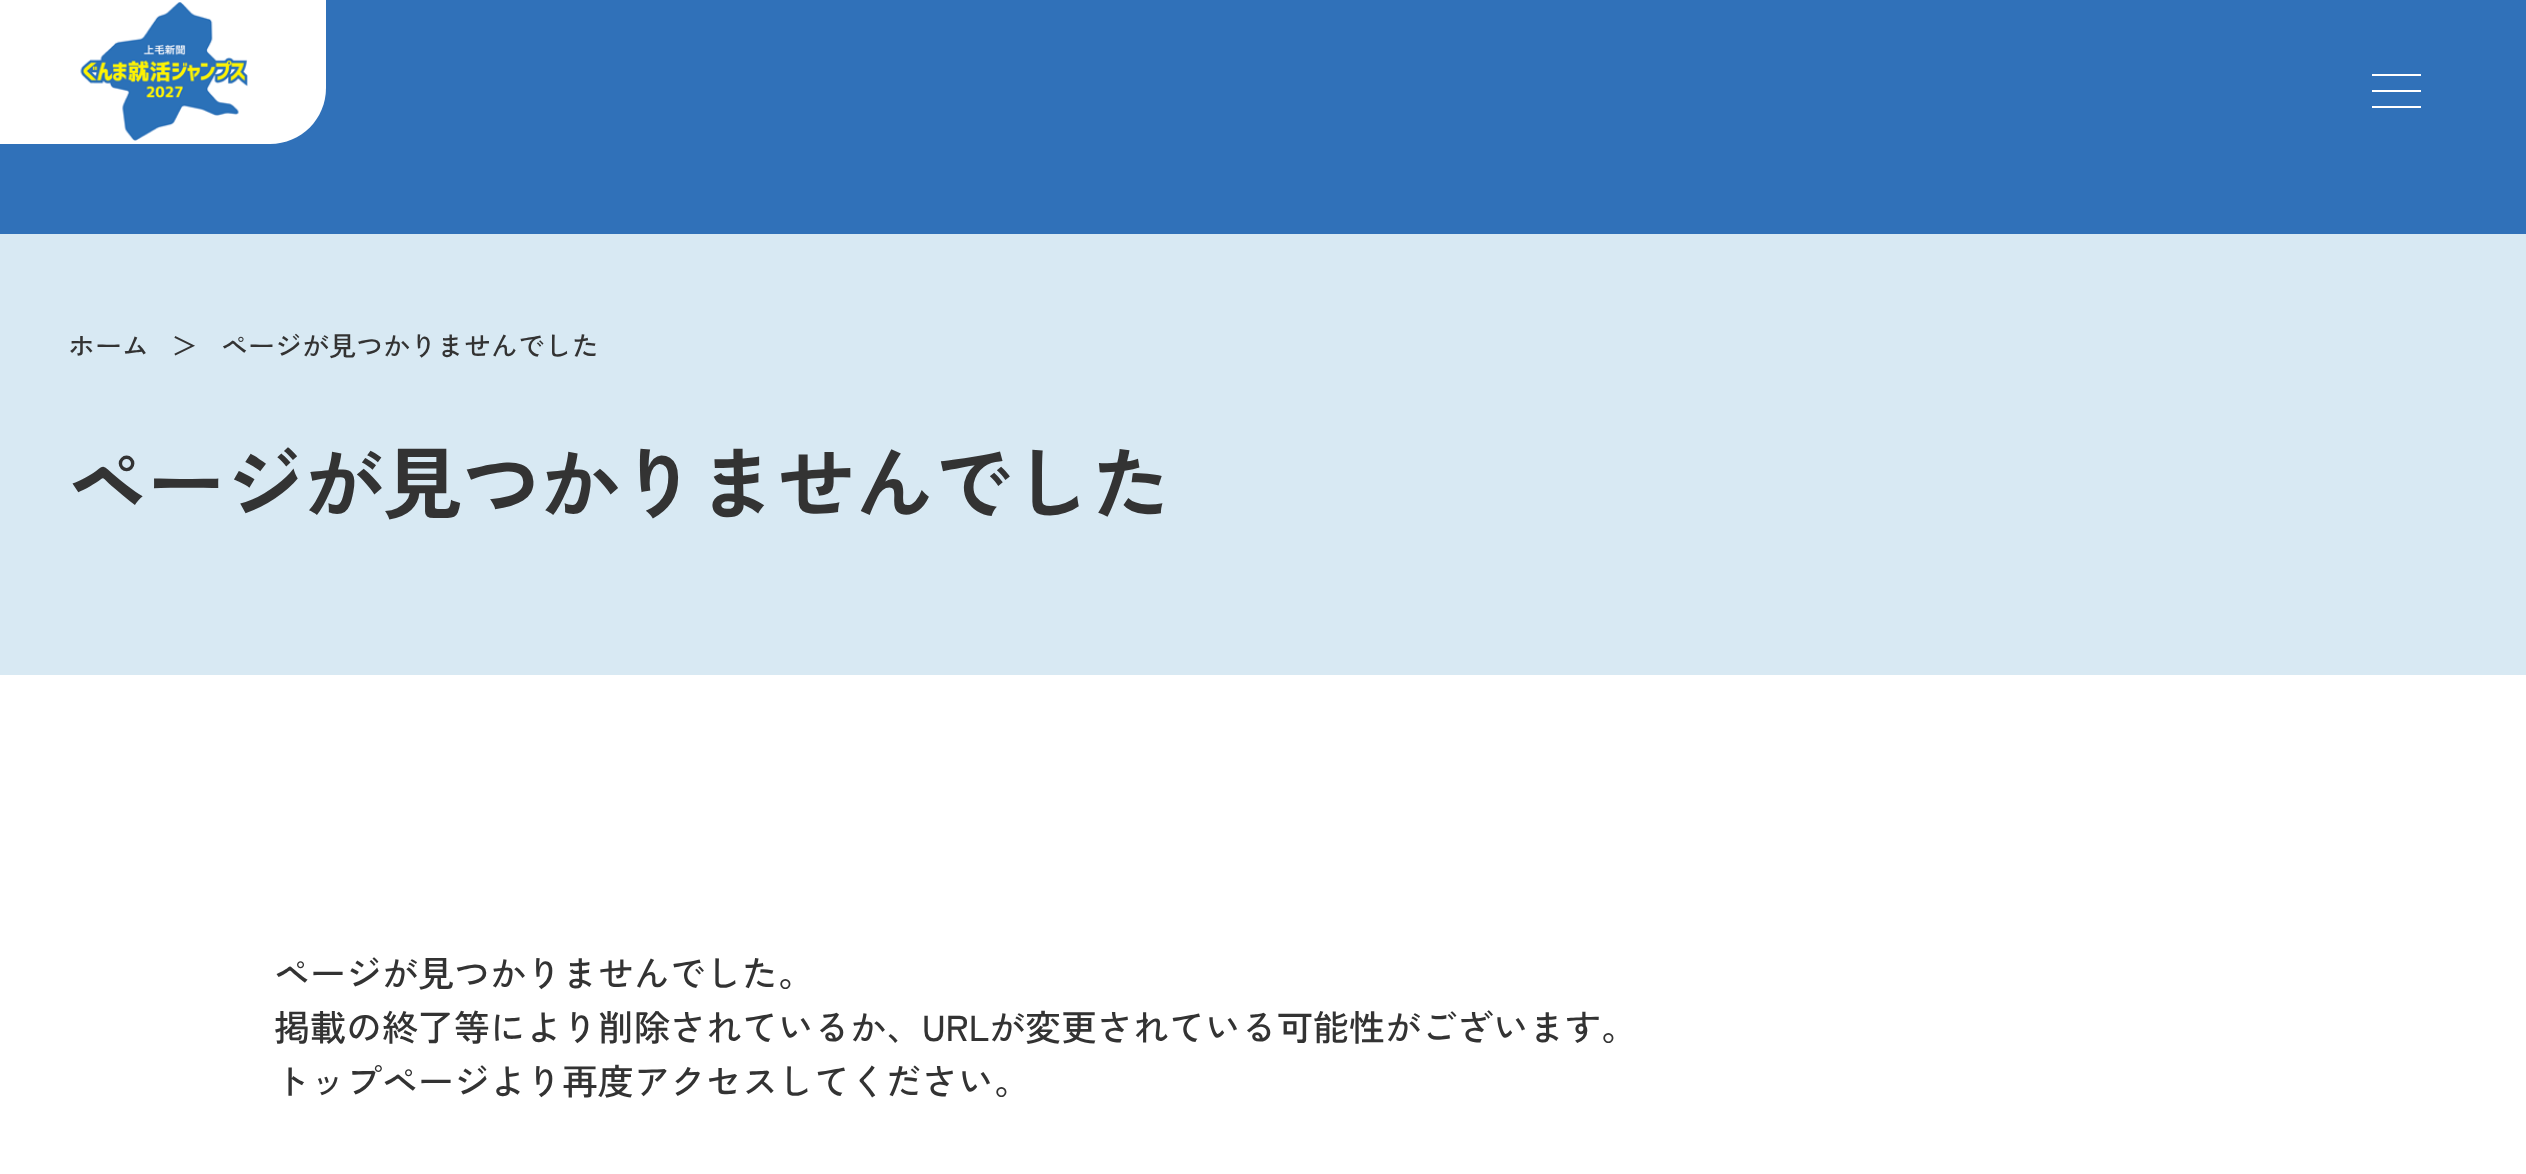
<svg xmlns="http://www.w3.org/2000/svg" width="2526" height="1174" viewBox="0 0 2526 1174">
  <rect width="100%" height="100%" fill="rgb(255,255,255)"/>
  <rect x="0" y="0" width="2526" height="234" fill="rgb(48,113,185)"/>
  <path d="M0 0H326V88C326 119 301 144 270 144H0Z" fill="rgb(255,255,255)"/>
  <image x="80" y="2" width="168" height="139" href="pic1.png"/>
  <rect x="2372" y="90" width="49" height="2" fill="rgb(255,255,255)"/>
  <rect x="2372" y="74" width="49" height="2" fill="rgb(255,255,255)"/>
  <rect x="2372" y="106" width="49" height="2" fill="rgb(255,255,255)"/>
  <rect x="0" y="234" width="2526" height="441" fill="rgb(216,233,243)"/>
  <g font-family="Zen Kaku Gothic New" font-size="27" font-weight="500" fill="rgb(51,51,51)">
    <text x="68" y="356">ホーム</text>
    <text x="171" y="356">＞</text>
    <text x="221" y="356">ページが見つかりませんでした</text>
  </g>
  <text x="68" y="513" font-family="Zen Kaku Gothic New" font-size="78.75" font-weight="bold" fill="rgb(51,51,51)">ページが見つかりませんでした</text>
  <g font-family="Zen Kaku Gothic New" font-size="36" font-weight="500" fill="rgb(51,51,51)">
    <text>
      <tspan x="274" y="987">ページが見つかりませんでした。</tspan>
      <tspan x="274" y="1041">掲載の終了等により削除されているか、URLが変更されている可能性がございます。</tspan>
      <tspan x="274" y="1095">トップページより再度アクセスしてください。</tspan>
    </text>
  </g>
</svg>
